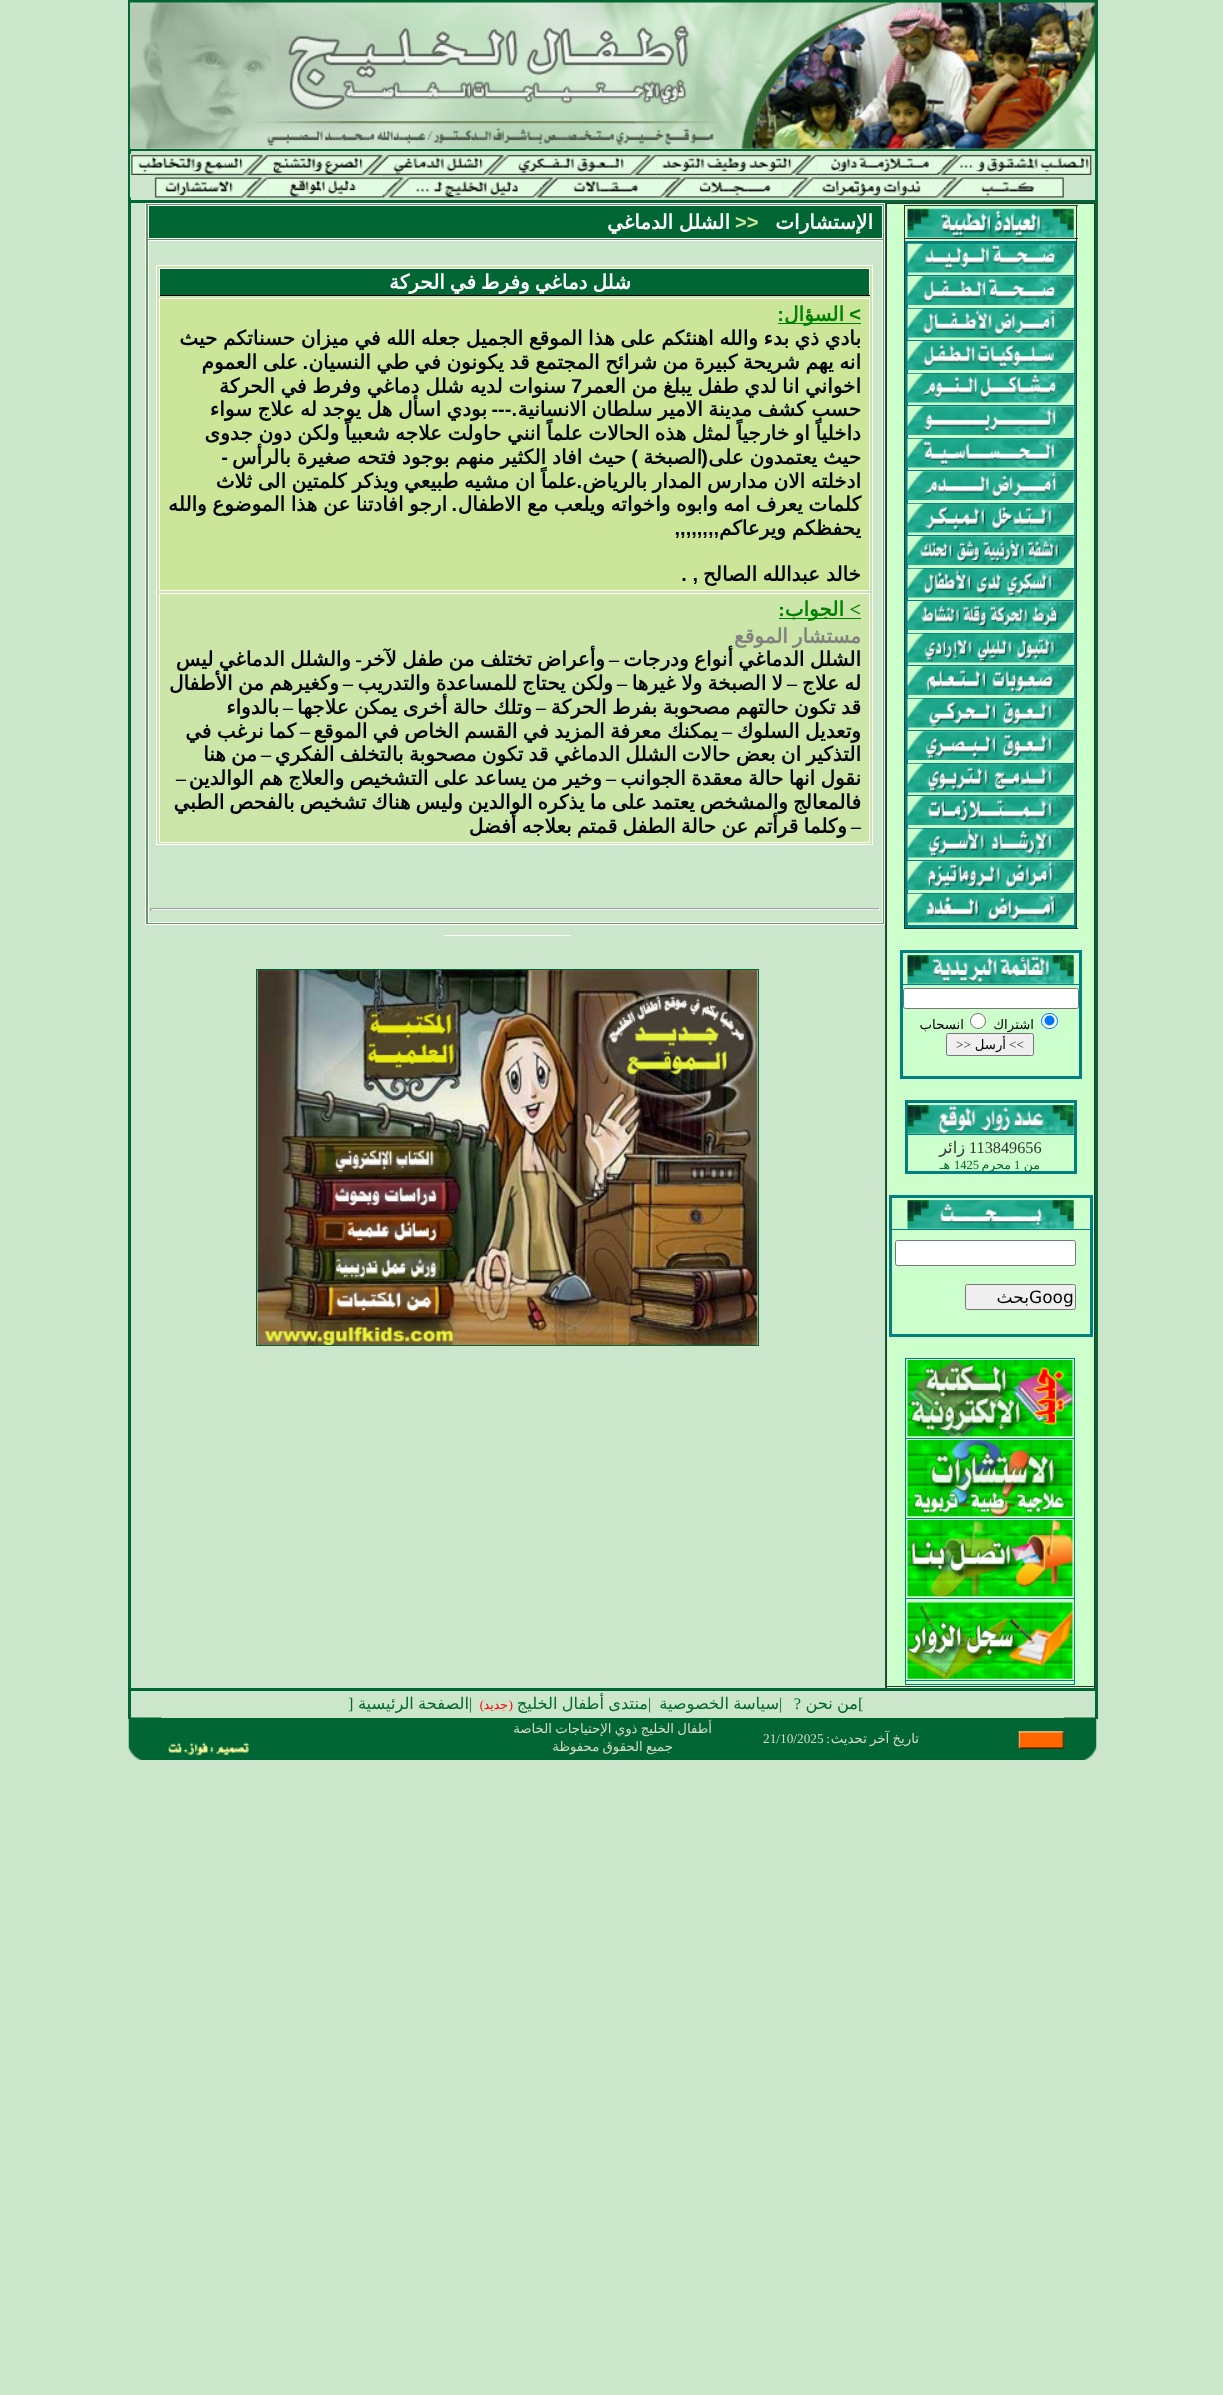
<svg xmlns="http://www.w3.org/2000/svg" width="1223" height="2395" viewBox="0 0 1223 2395">
  <rect width="100%" height="100%" fill="rgb(204,230,204)"/>
  <rect x="128" y="0" width="970" height="3" fill="rgb(0,102,51)"/>
  <rect x="1095" y="0" width="3" height="200" fill="rgb(0,102,51)"/>
  <rect x="128" y="149" width="970" height="2" fill="rgb(0,102,51)"/>
  <rect x="128" y="0" width="3" height="200" fill="rgb(0,102,51)"/>
  <image x="130" y="2" width="965" height="147" href="pic1.png"/>
  <image x="960" y="154" width="132" height="21" href="pic2.png"/>
  <image x="510" y="154" width="119" height="21" href="pic8.png"/>
  <image x="628" y="154" width="29" height="21" href="pic7.png"/>
  <image x="656" y="154" width="137" height="21" href="pic6.png"/>
  <image x="792" y="154" width="25" height="21" href="pic5.png"/>
  <image x="816" y="154" width="117" height="21" href="pic4.png"/>
  <image x="932" y="154" width="28" height="21" href="pic3.png"/>
  <image x="130" y="153" width="113" height="21" href="pic14.png"/>
  <image x="242" y="154" width="27" height="20" href="pic13.png"/>
  <image x="268" y="154" width="95" height="21" href="pic12.png"/>
  <image x="362" y="154" width="27" height="20" href="pic11.png"/>
  <image x="388" y="154" width="96" height="20" href="pic10.png"/>
  <image x="483" y="154" width="27" height="21" href="pic9.png"/>
  <image x="240" y="173" width="28" height="25" href="pic15.png"/>
  <image x="130" y="173" width="24" height="2" href="pic17.png"/>
  <image x="153" y="173" width="87" height="25" href="pic16.png"/>
  <image x="362" y="173" width="20" height="2" href="pic20.png"/>
  <image x="381" y="173" width="28" height="25" href="pic19.png"/>
  <image x="408" y="173" width="76" height="2" href="pic18.png"/>
  <image x="267" y="173" width="2" height="2" href="pic21.png"/>
  <image x="530" y="177" width="29" height="21" href="pic29.png"/>
  <image x="558" y="177" width="101" height="21" href="pic28.png"/>
  <image x="658" y="177" width="29" height="21" href="pic27.png"/>
  <image x="686" y="177" width="98" height="21" href="pic26.png"/>
  <image x="783" y="177" width="31" height="21" href="pic25.png"/>
  <image x="813" y="177" width="121" height="21" href="pic24.png"/>
  <image x="933" y="177" width="31" height="21" href="pic23.png"/>
  <image x="963" y="177" width="101" height="21" href="pic22.png"/>
  <image x="408" y="175" width="122" height="23" href="pic30.png"/>
  <image x="267" y="175" width="115" height="23" href="pic31.png"/>
  <image x="130" y="175" width="1" height="23" href="pic32.png"/>
  <rect x="885" y="201" width="1" height="1489" fill="rgb(0,102,51)"/>
  <rect x="128" y="200" width="970" height="3" fill="rgb(0,102,51)"/>
  <rect x="1095" y="200" width="3" height="1490" fill="rgb(0,102,51)"/>
  <rect x="128" y="1688" width="970" height="3" fill="rgb(0,102,51)"/>
  <rect x="128" y="200" width="3" height="1519" fill="rgb(0,102,51)"/>
  <rect x="145.5" y="203.5" width="739" height="721" fill="rgb(102,153,102)" stroke="rgb(255,255,255)"/>
  <rect x="148.5" y="205.5" width="734" height="33" fill="rgb(0,102,51)" stroke="rgb(255,255,255)"/>
  <text x="873" y="229" font-family="DejaVu Sans" font-size="20" font-weight="bold" direction="rtl" fill="rgb(255,255,255)">الإستشارات</text>
  <text x="735" y="229" font-family="Liberation Sans" font-size="20" font-weight="bold" fill="rgb(204,230,153)">&gt;&gt;</text>
  <text x="730" y="229" word-spacing="-0.75" font-family="DejaVu Sans" font-size="20" font-weight="bold" direction="rtl" fill="rgb(255,255,255)">الشلل الدماغي</text>
  <rect x="148.5" y="240.5" width="734" height="682" fill="rgb(204,230,204)" stroke="rgb(255,255,255)"/>
  <rect x="156.5" y="265.5" width="716" height="579" fill="rgb(204,230,169)" stroke="rgb(255,255,255)"/>
  <rect x="160" y="269" width="709" height="26" fill="rgb(0,102,51)"/>
  <rect x="159" y="268" width="711" height="1" fill="rgb(255,255,255)"/>
  <rect x="869" y="268" width="1" height="28" fill="rgb(255,255,255)"/>
  <rect x="159" y="295" width="711" height="1" fill="rgb(0,0,0)"/>
  <rect x="159" y="268" width="1" height="28" fill="rgb(255,255,255)"/>
  <text x="631" y="289" word-spacing="-1.4" font-family="DejaVu Sans" font-size="20" font-weight="bold" direction="rtl" fill="rgb(255,255,255)">شلل دماغي وفرط في الحركة</text>
  <rect x="159.5" y="298.5" width="710" height="292" fill="rgb(204,230,153)" stroke="rgb(255,255,255)"/>
  <text x="861" y="321" font-family="Liberation Sans" font-size="20" font-weight="bold" direction="rtl" fill="rgb(0,128,0)">&gt;</text>
  <rect x="778" y="323" width="83" height="1" fill="rgb(0,128,0)"/>
  <text x="844" y="321" font-family="DejaVu Sans" font-size="20" font-weight="bold" direction="rtl" fill="rgb(0,128,0)">السؤال</text>
  <text x="784" y="321" font-family="Liberation Sans" font-size="20" font-weight="bold" direction="rtl" fill="rgb(0,128,0)">:</text>
  <g font-family="DejaVu Sans" font-size="20" font-weight="bold" direction="rtl" fill="rgb(0,0,0)">
    <text>
      <tspan x="861" y="345" word-spacing="-0.75">بادي ذي بدء والله اهنئكم على هذا الموقع الجميل جعله الله في ميزان حسناتكم حيث</tspan>
      <tspan x="861" y="369" word-spacing="-0.75">انه يهم شريحة كبيرة من شرائح المجتمع قد يكونون في طي النسيان</tspan>
    </text>
  </g>
  <text x="308" y="369" font-family="Liberation Sans" font-size="20" font-weight="bold" direction="rtl" fill="rgb(0,0,0)">.</text>
  <text x="298" y="369" word-spacing="-0.75" font-family="DejaVu Sans" font-size="20" font-weight="bold" direction="rtl" fill="rgb(0,0,0)">على العموم</text>
  <text x="571" y="393" font-family="Liberation Sans" font-size="20" font-weight="bold" fill="rgb(0,0,0)">7</text>
  <g font-family="DejaVu Sans" font-size="20" font-weight="bold" direction="rtl" fill="rgb(0,0,0)">
    <text x="861" y="393" word-spacing="-0.75">اخواني انا لدي طفل يبلغ من العمر</text>
    <text x="566" y="393" word-spacing="-0.5">سنوات لديه شلل دماغي</text>
    <text x="361" y="393" word-spacing="-0.75">وفرط في الحركة</text>
    <text x="861" y="416" word-spacing="-0.75">حسب كشف مدينة الامير سلطان الانسانية</text>
  </g>
  <text x="517" y="416" font-family="Liberation Sans" font-size="20" font-weight="bold" direction="rtl" fill="rgb(0,0,0)">.---</text>
  <g font-family="DejaVu Sans" font-size="20" font-weight="bold" direction="rtl" fill="rgb(0,0,0)">
    <text x="487" y="416" word-spacing="-0.75">بودي اسأل هل يوجد له علاج سواء</text>
    <text>
      <tspan x="861" y="440" word-spacing="-0.75">داخلياً او خارجياً لمثل هذه الحالات علماً انني حاولت علاجه شعبياً ولكن دون جدوى</tspan>
      <tspan x="861" y="464" word-spacing="-0.5">حيث يعتمدون على</tspan>
    </text>
  </g>
  <text x="708" y="464" font-family="Liberation Sans" font-size="20" font-weight="bold" direction="rtl" fill="rgb(0,0,0)">(</text>
  <text x="702" y="464" font-family="DejaVu Sans" font-size="20" font-weight="bold" direction="rtl" fill="rgb(0,0,0)">الصبخة</text>
  <text x="638" y="464" font-family="Liberation Sans" font-size="20" font-weight="bold" direction="rtl" fill="rgb(0,0,0)">)</text>
  <text x="626" y="464" word-spacing="-0.5" font-family="DejaVu Sans" font-size="20" font-weight="bold" direction="rtl" fill="rgb(0,0,0)">حيث افاد الكثير منهم بوجود فتحه صغيرة بالرأس</text>
  <text x="228" y="464" font-family="Liberation Sans" font-size="20" font-weight="bold" direction="rtl" fill="rgb(0,0,0)">-</text>
  <text x="861" y="488" word-spacing="-0.75" font-family="DejaVu Sans" font-size="20" font-weight="bold" direction="rtl" fill="rgb(0,0,0)">ادخلته الان مدارس المدار بالرياض</text>
  <text x="582" y="488" font-family="Liberation Sans" font-size="20" font-weight="bold" direction="rtl" fill="rgb(0,0,0)">.</text>
  <g font-family="DejaVu Sans" font-size="20" font-weight="bold" direction="rtl" fill="rgb(0,0,0)">
    <text x="577" y="488" word-spacing="-0.75">علماً ان مشيه طبيعي ويذكر كلمتين الى ثلاث</text>
    <text x="861" y="511" word-spacing="-0.75">كلمات يعرف امه وابوه واخواته ويلعب مع الاطفال</text>
  </g>
  <text x="457" y="511" font-family="Liberation Sans" font-size="20" font-weight="bold" direction="rtl" fill="rgb(0,0,0)">.</text>
  <g font-family="DejaVu Sans" font-size="20" font-weight="bold" direction="rtl" fill="rgb(0,0,0)">
    <text x="447" y="511" word-spacing="-0.75">ارجو افادتنا عن هذا الموضوع والله</text>
    <text x="861" y="535" word-spacing="-0.75">يحفظكم ويرعاكم</text>
  </g>
  <text x="719" y="535" font-family="Liberation Sans" font-size="20" font-weight="bold" direction="rtl" fill="rgb(0,0,0)">,,,,,,,,</text>
  <g font-family="DejaVu Sans" font-size="20" font-weight="bold" direction="rtl" fill="rgb(0,0,0)">
    <text x="861" y="581">خالد</text>
    <text x="820" y="581">عبدالله</text>
    <text x="757" y="581">الصالح</text>
  </g>
  <text x="698" y="581" font-family="Liberation Sans" font-size="20" font-weight="bold" direction="rtl" fill="rgb(0,0,0)">, .</text>
  <rect x="159.5" y="593.5" width="710" height="249" fill="none" stroke="rgb(255,255,255)"/>
  <text x="861" y="616" font-family="Liberation Serif" font-size="20" font-weight="bold" direction="rtl" fill="rgb(0,128,0)">&gt;</text>
  <rect x="779" y="618" width="82" height="1" fill="rgb(0,128,0)"/>
  <text x="844" y="616" font-family="DejaVu Sans" font-size="20" font-weight="bold" direction="rtl" fill="rgb(0,128,0)">الجواب</text>
  <text x="785" y="616" font-family="Liberation Serif" font-size="20" font-weight="bold" direction="rtl" fill="rgb(0,128,0)">:</text>
  <text x="861" y="643" word-spacing="-1.4" font-family="DejaVu Sans" font-size="20" font-weight="bold" direction="rtl" fill="rgb(128,128,128)">مستشار الموقع</text>
  <text x="861" y="666" word-spacing="-1" font-family="DejaVu Sans" font-size="20" font-weight="bold" direction="rtl" fill="rgb(0,0,0)">الشلل الدماغي أنواع ودرجات</text>
  <g font-family="Liberation Serif" font-size="20" font-weight="bold" direction="rtl" fill="rgb(0,0,0)">
    <text x="619" y="666">–</text>
    <text x="362" y="666">-</text>
  </g>
  <g font-family="DejaVu Sans" font-size="20" font-weight="bold" direction="rtl" fill="rgb(0,0,0)">
    <text x="605" y="666" word-spacing="-1">وأعراض تختلف من طفل لآخر</text>
    <text x="351" y="666" word-spacing="-1">والشلل الدماغي ليس</text>
    <text x="861" y="690" word-spacing="-1">له علاج</text>
  </g>
  <text x="797" y="690" font-family="Liberation Serif" font-size="20" font-weight="bold" direction="rtl" fill="rgb(0,0,0)">–</text>
  <text x="783" y="690" word-spacing="-1" font-family="DejaVu Sans" font-size="20" font-weight="bold" direction="rtl" fill="rgb(0,0,0)">لا الصبخة ولا غيرها</text>
  <text x="627" y="690" font-family="Liberation Serif" font-size="20" font-weight="bold" direction="rtl" fill="rgb(0,0,0)">–</text>
  <text x="613" y="690" word-spacing="-1" font-family="DejaVu Sans" font-size="20" font-weight="bold" direction="rtl" fill="rgb(0,0,0)">ولكن يحتاج للمساعدة والتدريب</text>
  <text x="353" y="690" font-family="Liberation Serif" font-size="20" font-weight="bold" direction="rtl" fill="rgb(0,0,0)">–</text>
  <g font-family="DejaVu Sans" font-size="20" font-weight="bold" direction="rtl" fill="rgb(0,0,0)">
    <text x="339" y="690" word-spacing="-1">وكغيرهم من الأطفال</text>
    <text x="861" y="714" word-spacing="-1">قد تكون حالتهم مصحوبة بفرط الحركة</text>
  </g>
  <text x="546" y="714" font-family="Liberation Serif" font-size="20" font-weight="bold" direction="rtl" fill="rgb(0,0,0)">–</text>
  <text x="532" y="714" word-spacing="-1" font-family="DejaVu Sans" font-size="20" font-weight="bold" direction="rtl" fill="rgb(0,0,0)">وتلك حالة أخرى يمكن علاجها</text>
  <text x="293" y="714" font-family="Liberation Serif" font-size="20" font-weight="bold" direction="rtl" fill="rgb(0,0,0)">–</text>
  <g font-family="DejaVu Sans" font-size="20" font-weight="bold" direction="rtl" fill="rgb(0,0,0)">
    <text x="279" y="714">بالدواء</text>
    <text x="861" y="738" word-spacing="-1">وتعديل السلوك</text>
  </g>
  <text x="732" y="738" font-family="Liberation Serif" font-size="20" font-weight="bold" direction="rtl" fill="rgb(0,0,0)">–</text>
  <text x="718" y="738" word-spacing="-1" font-family="DejaVu Sans" font-size="20" font-weight="bold" direction="rtl" fill="rgb(0,0,0)">يمكنك معرفة المزيد في القسم الخاص في الموقع</text>
  <text x="310" y="738" font-family="Liberation Serif" font-size="20" font-weight="bold" direction="rtl" fill="rgb(0,0,0)">–</text>
  <g font-family="DejaVu Sans" font-size="20" font-weight="bold" direction="rtl" fill="rgb(0,0,0)">
    <text x="296" y="738" word-spacing="-1">كما نرغب في</text>
    <text x="861" y="761" word-spacing="-1.1">التذكير ان بعض حالات الشلل الدماغي قد تكون مصحوبة بالتخلف الفكري</text>
  </g>
  <text x="271" y="761" font-family="Liberation Serif" font-size="20" font-weight="bold" direction="rtl" fill="rgb(0,0,0)">–</text>
  <g font-family="DejaVu Sans" font-size="20" font-weight="bold" direction="rtl" fill="rgb(0,0,0)">
    <text x="257" y="761" word-spacing="-1.1">من هنا</text>
    <text x="861" y="785" word-spacing="-1">نقول انها حالة معقدة الجوانب</text>
  </g>
  <text x="616" y="785" font-family="Liberation Serif" font-size="20" font-weight="bold" direction="rtl" fill="rgb(0,0,0)">–</text>
  <text x="602" y="785" word-spacing="-1" font-family="DejaVu Sans" font-size="20" font-weight="bold" direction="rtl" fill="rgb(0,0,0)">وخير من يساعد على التشخيص والعلاج هم الوالدين</text>
  <text x="186" y="785" font-family="Liberation Serif" font-size="20" font-weight="bold" direction="rtl" fill="rgb(0,0,0)">–</text>
  <text x="861" y="809" word-spacing="-1.4" font-family="DejaVu Sans" font-size="20" font-weight="bold" direction="rtl" fill="rgb(0,0,0)">فالمعالج والمشخص يعتمد على ما يذكره الوالدين وليس هناك تشخيص بالفحص الطبي</text>
  <text x="861" y="833" font-family="Liberation Serif" font-size="20" font-weight="bold" direction="rtl" fill="rgb(0,0,0)">–</text>
  <text x="847" y="833" word-spacing="-1.25" font-family="DejaVu Sans" font-size="20" font-weight="bold" direction="rtl" fill="rgb(0,0,0)">وكلما قرأتم عن حالة الطفل قمتم بعلاجه أفضل</text>
  <rect x="150" y="908" width="730" height="1" fill="rgb(159,159,159)"/>
  <rect x="879" y="908" width="1" height="3" fill="rgb(238,238,238)"/>
  <rect x="150" y="909" width="730" height="1" fill="rgb(238,238,238)"/>
  <rect x="150" y="908" width="1" height="3" fill="rgb(159,159,159)"/>
  <rect x="444" y="935" width="127" height="1" fill="rgb(255,255,255)"/>
  <rect x="256.5" y="969.5" width="502" height="376" fill="none" stroke="rgb(0,102,51)"/>
  <image x="257" y="970" width="501" height="375" href="pic33.png"/>
  <rect x="887" y="204" width="207" height="1484" fill="rgb(204,255,204)"/>
  <rect x="886" y="203" width="209" height="1" fill="rgb(51,51,51)"/>
  <rect x="1094" y="203" width="1" height="1485" fill="rgb(51,51,51)"/>
  <rect x="886" y="1686" width="209" height="1" fill="rgb(51,51,51)"/>
  <rect x="886" y="203" width="1" height="1485" fill="rgb(51,51,51)"/>
  <rect x="904" y="205" width="174" height="1" fill="rgb(51,51,51)"/>
  <rect x="1076" y="205" width="1" height="724" fill="rgb(51,51,51)"/>
  <rect x="904" y="928" width="174" height="1" fill="rgb(51,51,51)"/>
  <rect x="904" y="205" width="1" height="724" fill="rgb(51,51,51)"/>
  <image x="907" y="208" width="167" height="30" href="pic34.png"/>
  <rect x="904" y="238" width="174" height="1" fill="rgb(51,51,51)"/>
  <rect x="905" y="241" width="171" height="3" fill="rgb(0,128,128)"/>
  <rect x="905" y="275" width="170" height="1" fill="rgb(0,128,128)"/>
  <rect x="905" y="308" width="170" height="1" fill="rgb(0,128,128)"/>
  <rect x="905" y="340" width="170" height="1" fill="rgb(0,128,128)"/>
  <rect x="905" y="373" width="170" height="1" fill="rgb(0,128,128)"/>
  <rect x="905" y="405" width="170" height="1" fill="rgb(0,128,128)"/>
  <rect x="905" y="438" width="170" height="1" fill="rgb(0,128,128)"/>
  <rect x="905" y="470" width="170" height="1" fill="rgb(0,128,128)"/>
  <rect x="905" y="503" width="170" height="1" fill="rgb(0,128,128)"/>
  <rect x="905" y="535" width="170" height="1" fill="rgb(0,128,128)"/>
  <rect x="905" y="568" width="170" height="1" fill="rgb(0,128,128)"/>
  <rect x="905" y="600" width="170" height="1" fill="rgb(0,128,128)"/>
  <rect x="905" y="633" width="170" height="1" fill="rgb(0,128,128)"/>
  <rect x="905" y="665" width="170" height="1" fill="rgb(0,128,128)"/>
  <rect x="905" y="698" width="170" height="1" fill="rgb(0,128,128)"/>
  <rect x="905" y="730" width="170" height="1" fill="rgb(0,128,128)"/>
  <rect x="905" y="763" width="170" height="1" fill="rgb(0,128,128)"/>
  <rect x="905" y="795" width="170" height="1" fill="rgb(0,128,128)"/>
  <rect x="905" y="828" width="170" height="1" fill="rgb(0,128,128)"/>
  <rect x="905" y="860" width="170" height="1" fill="rgb(0,128,128)"/>
  <rect x="905" y="893" width="170" height="1" fill="rgb(0,128,128)"/>
  <rect x="1074" y="241" width="2" height="687" fill="rgb(0,128,128)"/>
  <rect x="905" y="925" width="171" height="3" fill="rgb(0,128,128)"/>
  <rect x="905" y="241" width="3" height="687" fill="rgb(0,128,128)"/>
  <image x="907" y="243" width="167" height="30" href="pic35.png"/>
  <image x="907" y="276" width="167" height="29" href="pic36.png"/>
  <image x="907" y="308" width="167" height="30" href="pic37.png"/>
  <image x="907" y="341" width="167" height="29" href="pic38.png"/>
  <image x="907" y="373" width="167" height="30" href="pic39.png"/>
  <image x="907" y="406" width="167" height="29" href="pic40.png"/>
  <image x="907" y="438" width="167" height="30" href="pic41.png"/>
  <image x="907" y="471" width="167" height="29" href="pic42.png"/>
  <image x="907" y="503" width="167" height="30" href="pic43.png"/>
  <image x="907" y="536" width="167" height="29" href="pic44.png"/>
  <image x="907" y="568" width="167" height="30" href="pic45.png"/>
  <image x="907" y="601" width="167" height="29" href="pic46.png"/>
  <image x="907" y="633" width="167" height="30" href="pic47.png"/>
  <image x="907" y="666" width="167" height="29" href="pic48.png"/>
  <image x="907" y="698" width="167" height="30" href="pic49.png"/>
  <image x="907" y="731" width="167" height="29" href="pic50.png"/>
  <image x="907" y="763" width="167" height="30" href="pic51.png"/>
  <image x="907" y="796" width="167" height="29" href="pic52.png"/>
  <image x="907" y="828" width="167" height="30" href="pic53.png"/>
  <image x="907" y="861" width="167" height="29" href="pic54.png"/>
  <image x="907" y="893" width="167" height="30" href="pic55.png"/>
  <rect x="900" y="950" width="181" height="3" fill="rgb(0,128,128)"/>
  <rect x="900" y="984" width="180" height="1" fill="rgb(0,128,128)"/>
  <rect x="1079" y="950" width="3" height="129" fill="rgb(0,128,128)"/>
  <rect x="900" y="1076" width="181" height="3" fill="rgb(0,128,128)"/>
  <rect x="900" y="950" width="3" height="129" fill="rgb(0,128,128)"/>
  <image x="907" y="955" width="167" height="29" href="pic56.png"/>
  <rect x="903.5" y="988.5" width="175" height="20" rx="2" fill="rgb(255,255,255)" stroke="rgb(118,118,118)"/>
  <rect x="1041.5" y="1013.5" width="16" height="15" rx="7.5" fill="rgb(255,255,255)" stroke="rgb(0,117,255)"/>
  <circle cx="1049.5" cy="1020.5" r="5" fill="rgb(0,117,255)"/>
  <text x="1034" y="1029" font-family="DejaVu Sans" font-size="13.3" direction="rtl" fill="rgb(0,0,0)">اشتراك</text>
  <circle cx="978" cy="1021" r="7.5" fill="rgb(255,255,255)" stroke="rgb(118,118,118)"/>
  <text x="964" y="1029" font-family="DejaVu Sans" font-size="13.3" direction="rtl" fill="rgb(0,0,0)">انسحاب</text>
  <rect x="946.5" y="1033.5" width="87" height="22" rx="2" fill="rgb(239,239,239)" stroke="rgb(118,118,118)"/>
  <text x="1009" y="1049" font-family="Liberation Serif" font-size="13.3" fill="rgb(0,0,0)">&lt;&lt;</text>
  <text x="1006" y="1049" font-family="DejaVu Sans" font-size="13.3" direction="rtl" fill="rgb(0,0,0)">أرسل</text>
  <text x="956" y="1049" font-family="Liberation Serif" font-size="13.3" fill="rgb(0,0,0)">&gt;&gt;</text>
  <rect x="905" y="1100" width="171" height="3" fill="rgb(0,128,128)"/>
  <rect x="905" y="1134" width="170" height="1" fill="rgb(0,128,128)"/>
  <rect x="1074" y="1100" width="3" height="74" fill="rgb(0,128,128)"/>
  <rect x="905" y="1171" width="171" height="3" fill="rgb(0,128,128)"/>
  <rect x="905" y="1100" width="3" height="74" fill="rgb(0,128,128)"/>
  <image x="907" y="1105" width="167" height="29" href="pic57.png"/>
  <text x="969" y="1153" font-family="Liberation Serif" font-size="16.25" fill="rgb(51,51,51)">113849656</text>
  <text x="965" y="1153" font-family="DejaVu Sans" font-size="16.25" direction="rtl" fill="rgb(51,51,51)">زائر</text>
  <text x="1040" y="1169" font-family="DejaVu Sans" font-size="12.5" direction="rtl" fill="rgb(0,102,48)">من</text>
  <text x="1014" y="1169" font-family="Liberation Serif" font-size="12.5" fill="rgb(0,102,48)">1</text>
  <text x="1011" y="1169" font-family="DejaVu Sans" font-size="12.5" direction="rtl" fill="rgb(0,102,48)">محرم</text>
  <text x="954" y="1169" font-family="Liberation Serif" font-size="12.5" fill="rgb(0,102,48)">1425</text>
  <text x="950" y="1169" font-family="DejaVu Sans" font-size="12.5" direction="rtl" fill="rgb(0,102,48)">هـ</text>
  <rect x="889" y="1195" width="204" height="3" fill="rgb(0,128,128)"/>
  <rect x="889" y="1229" width="202" height="1" fill="rgb(0,128,128)"/>
  <rect x="1090" y="1195" width="3" height="141" fill="rgb(0,128,128)"/>
  <rect x="889" y="1334" width="204" height="3" fill="rgb(0,128,128)"/>
  <rect x="889" y="1195" width="3" height="141" fill="rgb(0,128,128)"/>
  <image x="907" y="1200" width="167" height="29" href="pic58.png"/>
  <rect x="895.5" y="1240.5" width="180" height="25" rx="2" fill="rgb(255,255,255)" stroke="rgb(118,118,118)"/>
  <rect x="965.5" y="1284.5" width="110" height="25" rx="2" fill="rgb(239,239,239)" stroke="rgb(118,118,118)"/>
  <text x="1029" y="1303" font-family="DejaVu Sans" font-size="17" fill="rgb(0,0,0)">Goog</text>
  <text x="1029" y="1303" font-family="DejaVu Sans" font-size="17" direction="rtl" fill="rgb(0,0,0)">بحث</text>
  <rect x="905" y="1358" width="170" height="1" fill="rgb(0,128,128)"/>
  <rect x="1074" y="1358" width="1" height="327" fill="rgb(0,128,128)"/>
  <rect x="905" y="1684" width="170" height="1" fill="rgb(0,128,128)"/>
  <rect x="905" y="1358" width="1" height="327" fill="rgb(0,128,128)"/>
  <image x="907" y="1360" width="166" height="77" href="pic59.png"/>
  <rect x="905" y="1438" width="170" height="1" fill="rgb(0,128,128)"/>
  <image x="907" y="1440" width="166" height="77" href="pic60.png"/>
  <rect x="905" y="1518" width="170" height="1" fill="rgb(0,128,128)"/>
  <image x="907" y="1520" width="166" height="77" href="pic61.png"/>
  <rect x="905" y="1598" width="170" height="1" fill="rgb(0,128,128)"/>
  <image x="907" y="1602" width="166" height="77" href="pic62.png"/>
  <rect x="905" y="1680" width="170" height="1" fill="rgb(0,128,128)"/>
  <rect x="1095" y="1689" width="3" height="30" fill="rgb(0,102,51)"/>
  <text x="858" y="1709" font-family="Liberation Serif" font-size="16.25" fill="rgb(0,102,48)">[</text>
  <text x="858" y="1709" word-spacing="-1" font-family="DejaVu Sans" font-size="16.25" direction="rtl" fill="rgb(0,102,48)">من نحن</text>
  <text x="801" y="1709" font-family="Liberation Serif" font-size="16.25" direction="rtl" fill="rgb(0,102,48)">?</text>
  <text x="779" y="1709" font-family="Liberation Serif" font-size="16.25" fill="rgb(0,102,48)">|</text>
  <text x="779" y="1709" word-spacing="-1" font-family="DejaVu Sans" font-size="16.25" direction="rtl" fill="rgb(0,102,48)">سياسة الخصوصية</text>
  <text x="648" y="1709" font-family="Liberation Serif" font-size="16.25" fill="rgb(0,102,48)">|</text>
  <text x="648" y="1709" word-spacing="-1" font-family="DejaVu Sans" font-size="16.25" direction="rtl" fill="rgb(0,102,48)">منتدى أطفال الخليج</text>
  <text x="513" y="1709" font-family="Liberation Serif" font-size="12.5" direction="rtl" fill="rgb(255,0,0)">(</text>
  <text x="508" y="1709" font-family="DejaVu Sans" font-size="12.5" direction="rtl" fill="rgb(255,0,0)">جديد</text>
  <text x="484" y="1709" font-family="Liberation Serif" font-size="12.5" direction="rtl" fill="rgb(255,0,0)">)</text>
  <text x="469" y="1709" font-family="Liberation Serif" font-size="16.25" fill="rgb(0,102,48)">|</text>
  <text x="469" y="1709" word-spacing="-1" font-family="DejaVu Sans" font-size="16.25" direction="rtl" fill="rgb(0,102,48)">الصفحة الرئيسية</text>
  <text x="348" y="1709" font-family="Liberation Serif" font-size="16.25" fill="rgb(0,102,48)">]</text>
  <rect x="161" y="1718" width="903" height="42" fill="rgb(0,102,51)"/>
  <image x="1018" y="1731" width="46" height="18" href="pic64.png"/>
  <image x="1063" y="1717" width="34" height="43" href="pic63.png"/>
  <text x="919" y="1743" word-spacing="-1" font-family="DejaVu Sans" font-size="13.3" direction="rtl" fill="rgb(217,217,198)">تاريخ آخر تحديث</text>
  <text x="830" y="1743" font-family="Liberation Serif" font-size="13.3" direction="rtl" fill="rgb(217,217,198)">:</text>
  <text x="763" y="1743" font-family="Liberation Serif" font-size="13.3" fill="rgb(217,217,198)">21/10/2025</text>
  <g font-family="DejaVu Sans" font-size="13.3" direction="rtl" fill="rgb(217,217,198)">
    <text x="712" y="1733" word-spacing="-1">أطفال الخليج ذوي الإحتياجات الخاصة</text>
    <text x="673" y="1751" word-spacing="-1">جميع الحقوق محفوظة</text>
  </g>
  <image x="128" y="1717" width="34" height="43" href="pic65.png"/>
  <image x="168" y="1742" width="81" height="14" href="pic66.png"/>
</svg>
